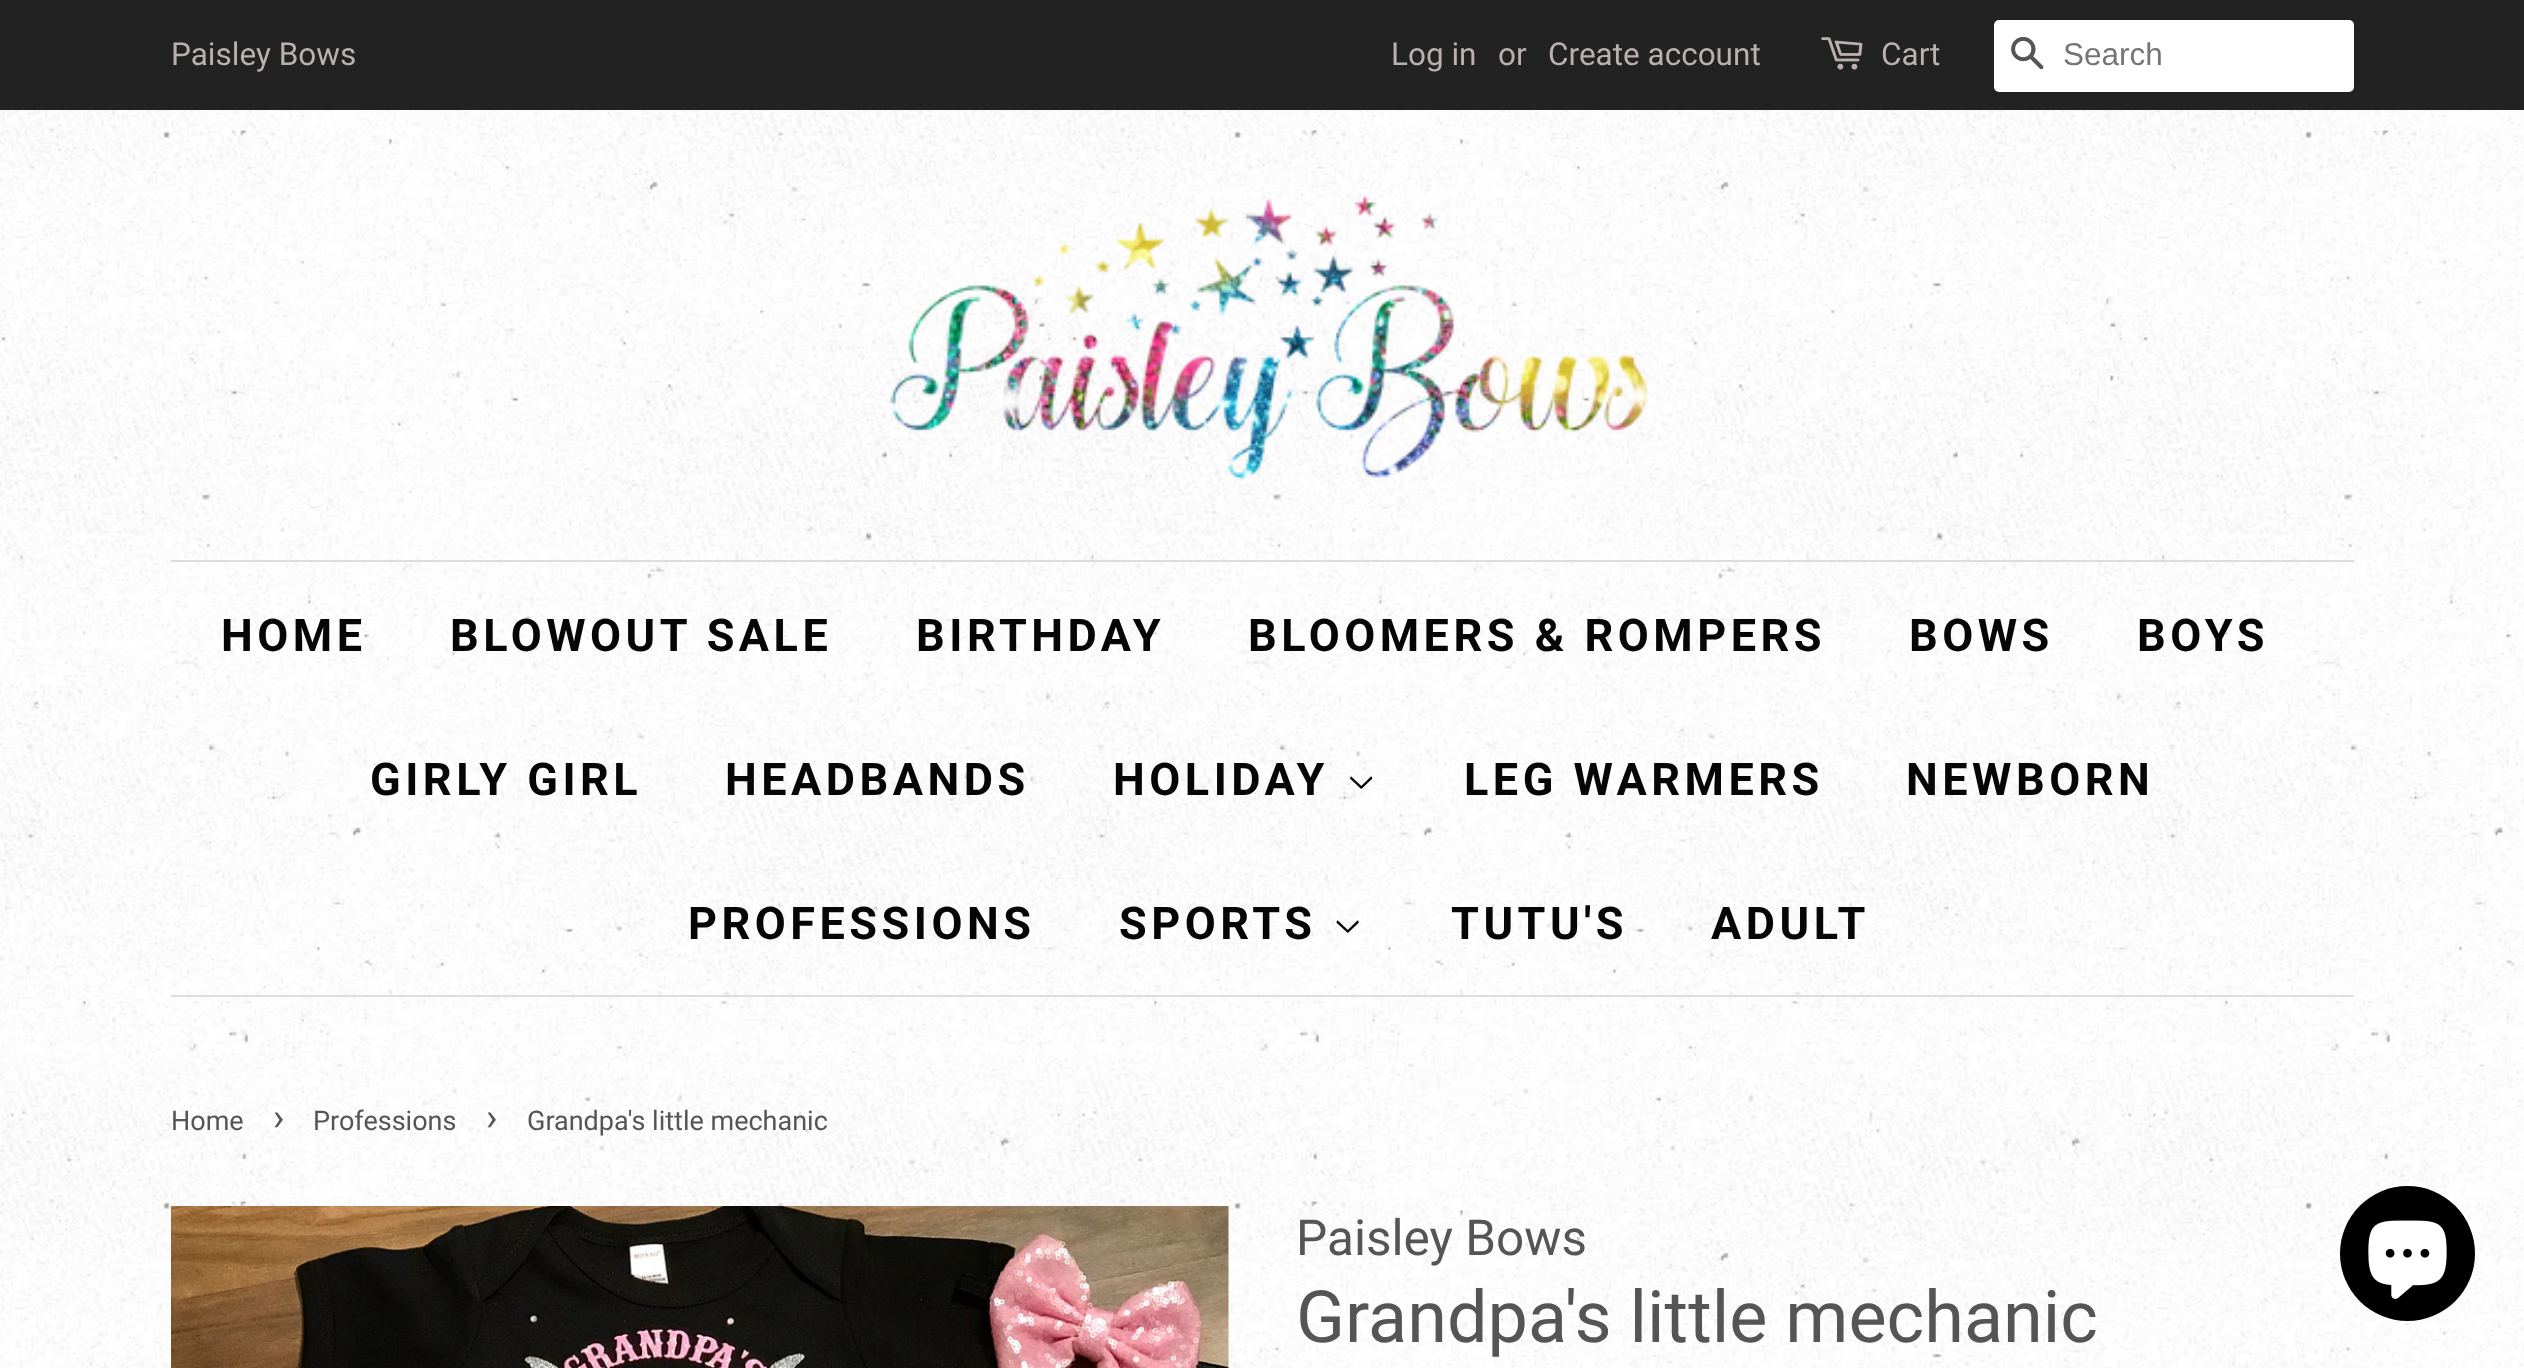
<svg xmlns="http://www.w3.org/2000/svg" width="2524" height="1368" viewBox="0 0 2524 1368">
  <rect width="100%" height="100%" fill="rgb(255,255,255)"/>
  <image x="0" y="110" width="2524" height="1258" href="pic1.png"/>
  <rect x="0" y="0" width="2524" height="110" fill="rgb(34,34,34)"/>
  <g font-family="Roboto" font-size="31.5" fill="rgb(186,176,176)">
    <text x="171" y="65">Paisley Bows</text>
    <text x="1391" y="65">Log in</text>
    <text x="1498" y="65">or</text>
    <text x="1548" y="65">Create account</text>
  </g>
  <image x="1821" y="37" width="42" height="33" href="pic2.png"/>
  <text x="1881" y="65" font-family="Roboto" font-size="31.5" fill="rgb(186,176,176)">Cart</text>
  <rect x="1994" y="20" width="360" height="72" rx="5" fill="rgb(255,255,255)"/>
  <image x="2011" y="36" width="33" height="34" href="pic3.png"/>
  <text x="2063" y="65" font-family="Liberation Sans" font-size="31.5" fill="rgb(117,117,117)">Search</text>
  <image x="890" y="195" width="759" height="285" href="pic4.png"/>
  <rect x="171" y="560" width="2183" height="2" fill="rgb(221,221,221)"/>
  <rect x="171" y="995" width="2183" height="2" fill="rgb(221,221,221)"/>
  <g font-family="Roboto" font-size="45" font-weight="bold" letter-spacing="4.5" fill="rgb(6,6,6)">
    <text x="221" y="651">HOME</text>
    <text x="450" y="651">BLOWOUT SALE</text>
    <text x="916" y="651">BIRTHDAY</text>
    <text x="1248" y="651">BLOOMERS &amp; ROMPERS</text>
    <text x="1909" y="651">BOWS</text>
    <text x="2137" y="651">BOYS</text>
    <text x="370" y="795">GIRLY GIRL</text>
    <text x="725" y="795">HEADBANDS</text>
    <text x="1113" y="795">HOLIDAY</text>
  </g>
  <image x="1350" y="776" width="23" height="13" href="pic5.png"/>
  <g font-family="Roboto" font-size="45" font-weight="bold" letter-spacing="4.5" fill="rgb(6,6,6)">
    <text x="1464" y="795">LEG WARMERS</text>
    <text x="1906" y="795">NEWBORN</text>
    <text x="688" y="939">PROFESSIONS</text>
    <text x="1119" y="939">SPORTS</text>
  </g>
  <image x="1336" y="920" width="23" height="13" href="pic6.png"/>
  <g font-family="Roboto" font-size="45" font-weight="bold" letter-spacing="4.5" fill="rgb(6,6,6)">
    <text x="1451" y="939">TUTU'S</text>
    <text x="1711" y="939">ADULT</text>
  </g>
  <text x="171" y="1130" font-family="Roboto" font-size="27" fill="rgb(85,85,85)">Home</text>
  <text x="273" y="1130" font-family="Roboto" font-size="38" fill="rgb(85,85,85)">›</text>
  <text x="313" y="1130" font-family="Roboto" font-size="27" fill="rgb(85,85,85)">Professions</text>
  <text x="486" y="1130" font-family="Roboto" font-size="38" fill="rgb(85,85,85)">›</text>
  <text x="527" y="1130" font-family="Roboto" font-size="27" fill="rgb(85,85,85)">Grandpa's little mechanic</text>
  <image x="171" y="1206" width="1058" height="162" href="pic7.png"/>
  <text x="1296" y="1255" font-family="Roboto" font-size="49.5" fill="rgb(85,85,85)">Paisley Bows</text>
  <text x="1296" y="1342" font-family="Roboto" font-size="72" fill="rgb(85,85,85)">Grandpa's little mechanic</text>
  <circle cx="2407.5" cy="1253.5" r="67.5" fill="rgb(0,0,0)"/>
  <image x="2368" y="1220" width="79" height="79" href="pic8.png"/>
</svg>
